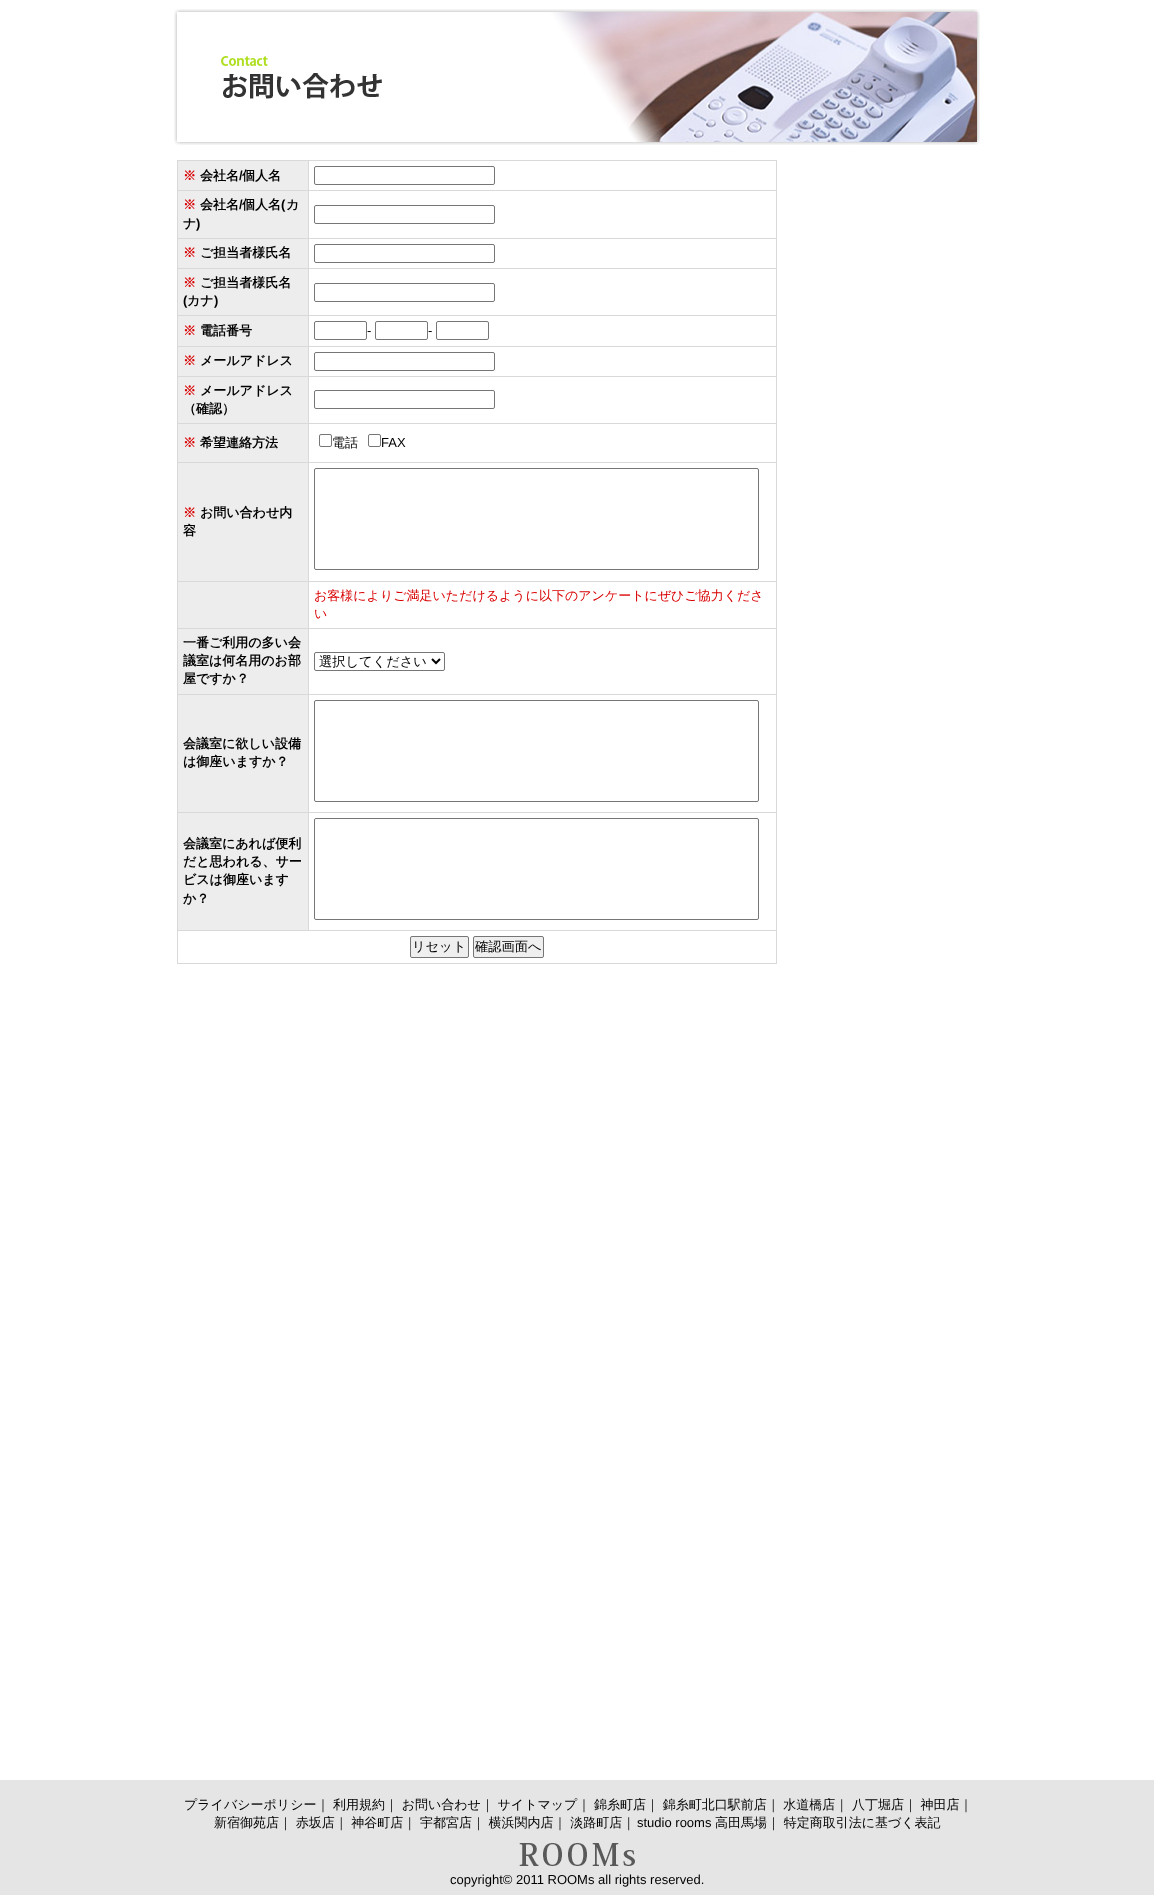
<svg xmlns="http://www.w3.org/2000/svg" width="1154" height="1895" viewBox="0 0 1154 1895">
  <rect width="100%" height="100%" fill="rgb(255,255,255)"/>
  <image x="174" y="9" width="806" height="136" href="pic1.png"/>
  <rect x="177" y="160" width="600" height="1" fill="rgb(217,217,217)"/>
  <rect x="776" y="160" width="1" height="804" fill="rgb(217,217,217)"/>
  <rect x="177" y="160" width="1" height="804" fill="rgb(217,217,217)"/>
  <rect x="178" y="161" width="130" height="29" fill="rgb(237,237,237)"/>
  <rect x="308" y="161" width="1" height="770" fill="rgb(217,217,217)"/>
  <rect x="178" y="190" width="598" height="1" fill="rgb(217,217,217)"/>
  <text x="183" y="180" font-family="WenQuanYi Zen Hei" font-size="13" font-weight="bold" fill="rgb(217,0,0)">※</text>
  <text x="200" y="180" font-family="WenQuanYi Zen Hei" font-size="13" font-weight="bold" fill="rgb(0,0,0)">会社名</text>
  <text x="239" y="180" font-family="Liberation Sans" font-size="13" font-weight="bold" fill="rgb(0,0,0)">/</text>
  <text x="242" y="180" font-family="WenQuanYi Zen Hei" font-size="13" font-weight="bold" fill="rgb(0,0,0)">個人名</text>
  <rect x="314.5" y="166.5" width="180" height="18" rx="1.5" fill="none" stroke="rgb(118,118,118)"/>
  <rect x="178" y="191" width="130" height="47" fill="rgb(237,237,237)"/>
  <rect x="178" y="238" width="598" height="1" fill="rgb(217,217,217)"/>
  <text x="183" y="209" font-family="WenQuanYi Zen Hei" font-size="13" font-weight="bold" fill="rgb(217,0,0)">※</text>
  <text x="200" y="209" font-family="WenQuanYi Zen Hei" font-size="13" font-weight="bold" fill="rgb(0,0,0)">会社名</text>
  <text x="239" y="209" font-family="Liberation Sans" font-size="13" font-weight="bold" fill="rgb(0,0,0)">/</text>
  <text x="242" y="209" font-family="WenQuanYi Zen Hei" font-size="13" font-weight="bold" fill="rgb(0,0,0)">個人名</text>
  <text x="281" y="209" font-family="Liberation Sans" font-size="13" font-weight="bold" fill="rgb(0,0,0)">(</text>
  <g font-family="WenQuanYi Zen Hei" font-size="13" font-weight="bold" fill="rgb(0,0,0)">
    <text x="286" y="209">カ</text>
    <text x="183" y="228">ナ</text>
  </g>
  <text x="196" y="228" font-family="Liberation Sans" font-size="13" font-weight="bold" fill="rgb(0,0,0)">)</text>
  <rect x="314.5" y="205.5" width="180" height="18" rx="1.5" fill="none" stroke="rgb(118,118,118)"/>
  <rect x="178" y="239" width="130" height="29" fill="rgb(237,237,237)"/>
  <rect x="178" y="268" width="598" height="1" fill="rgb(217,217,217)"/>
  <text x="183" y="257" font-family="WenQuanYi Zen Hei" font-size="13" font-weight="bold" fill="rgb(217,0,0)">※</text>
  <text x="200" y="257" font-family="WenQuanYi Zen Hei" font-size="13" font-weight="bold" fill="rgb(0,0,0)">ご担当者様氏名</text>
  <rect x="314.5" y="244.5" width="180" height="18" rx="1.5" fill="none" stroke="rgb(118,118,118)"/>
  <rect x="178" y="269" width="130" height="46" fill="rgb(237,237,237)"/>
  <rect x="178" y="315" width="598" height="1" fill="rgb(217,217,217)"/>
  <text x="183" y="287" font-family="WenQuanYi Zen Hei" font-size="13" font-weight="bold" fill="rgb(217,0,0)">※</text>
  <text x="200" y="287" font-family="WenQuanYi Zen Hei" font-size="13" font-weight="bold" fill="rgb(0,0,0)">ご担当者様氏名</text>
  <text x="183" y="305" font-family="Liberation Sans" font-size="13" font-weight="bold" fill="rgb(0,0,0)">(</text>
  <text x="187" y="305" font-family="WenQuanYi Zen Hei" font-size="13" font-weight="bold" fill="rgb(0,0,0)">カナ</text>
  <text x="214" y="305" font-family="Liberation Sans" font-size="13" font-weight="bold" fill="rgb(0,0,0)">)</text>
  <rect x="314.5" y="283.5" width="180" height="18" rx="1.5" fill="none" stroke="rgb(118,118,118)"/>
  <rect x="178" y="316" width="130" height="30" fill="rgb(237,237,237)"/>
  <rect x="178" y="346" width="598" height="1" fill="rgb(217,217,217)"/>
  <text x="183" y="335" font-family="WenQuanYi Zen Hei" font-size="13" font-weight="bold" fill="rgb(217,0,0)">※</text>
  <text x="200" y="335" font-family="WenQuanYi Zen Hei" font-size="13" font-weight="bold" fill="rgb(0,0,0)">電話番号</text>
  <rect x="314.5" y="321.5" width="52" height="18" rx="1.5" fill="none" stroke="rgb(118,118,118)"/>
  <text x="367" y="335" font-family="Liberation Sans" font-size="13" fill="rgb(0,0,0)">-</text>
  <rect x="375.5" y="321.5" width="52" height="18" rx="1.5" fill="none" stroke="rgb(118,118,118)"/>
  <text x="428" y="335" font-family="Liberation Sans" font-size="13" fill="rgb(0,0,0)">-</text>
  <rect x="436.5" y="321.5" width="52" height="18" rx="1.5" fill="none" stroke="rgb(118,118,118)"/>
  <rect x="178" y="347" width="130" height="29" fill="rgb(237,237,237)"/>
  <rect x="178" y="376" width="598" height="1" fill="rgb(217,217,217)"/>
  <text x="183" y="365" font-family="WenQuanYi Zen Hei" font-size="13" font-weight="bold" fill="rgb(217,0,0)">※</text>
  <text x="200" y="365" font-family="WenQuanYi Zen Hei" font-size="13" font-weight="bold" fill="rgb(0,0,0)">メールアドレス</text>
  <rect x="314.5" y="352.5" width="180" height="18" rx="1.5" fill="none" stroke="rgb(118,118,118)"/>
  <rect x="178" y="377" width="130" height="46" fill="rgb(237,237,237)"/>
  <rect x="178" y="423" width="598" height="1" fill="rgb(217,217,217)"/>
  <text x="183" y="395" font-family="WenQuanYi Zen Hei" font-size="13" font-weight="bold" fill="rgb(217,0,0)">※</text>
  <g font-family="WenQuanYi Zen Hei" font-size="13" font-weight="bold" fill="rgb(0,0,0)">
    <text x="200" y="395">メールアドレス</text>
    <text x="183" y="413">（確認）</text>
  </g>
  <rect x="314.5" y="390.5" width="180" height="18" rx="1.5" fill="none" stroke="rgb(118,118,118)"/>
  <rect x="178" y="424" width="130" height="38" fill="rgb(237,237,237)"/>
  <rect x="178" y="462" width="598" height="1" fill="rgb(217,217,217)"/>
  <text x="183" y="447" font-family="WenQuanYi Zen Hei" font-size="13" font-weight="bold" fill="rgb(217,0,0)">※</text>
  <text x="200" y="447" font-family="WenQuanYi Zen Hei" font-size="13" font-weight="bold" fill="rgb(0,0,0)">希望連絡方法</text>
  <rect x="319.5" y="434.5" width="12" height="12" rx="1.5" fill="none" stroke="rgb(118,118,118)"/>
  <text x="332" y="447" font-family="WenQuanYi Zen Hei" font-size="13" font-weight="500" fill="rgb(0,0,0)">電話</text>
  <rect x="368.5" y="434.5" width="12" height="12" rx="1.5" fill="none" stroke="rgb(118,118,118)"/>
  <text x="381" y="447" font-family="Liberation Sans" font-size="13" fill="rgb(0,0,0)">FAX</text>
  <rect x="178" y="463" width="130" height="118" fill="rgb(237,237,237)"/>
  <rect x="178" y="581" width="598" height="1" fill="rgb(217,217,217)"/>
  <text x="183" y="517" font-family="WenQuanYi Zen Hei" font-size="13" font-weight="bold" fill="rgb(217,0,0)">※</text>
  <g font-family="WenQuanYi Zen Hei" font-size="13" font-weight="bold" fill="rgb(0,0,0)">
    <text x="200" y="517">お問い合わせ内</text>
    <text x="183" y="535">容</text>
  </g>
  <rect x="314.5" y="468.5" width="444" height="101" rx="1.5" fill="none" stroke="rgb(118,118,118)"/>
  <rect x="178" y="582" width="130" height="46" fill="rgb(237,237,237)"/>
  <rect x="178" y="628" width="598" height="1" fill="rgb(217,217,217)"/>
  <g font-family="WenQuanYi Zen Hei" font-size="13" font-weight="500" fill="rgb(217,0,0)">
    <text>
      <tspan x="314" y="600">お客様によりご満足いただけるように以下のアンケートにぜひご協力くださ</tspan>
      <tspan x="314" y="618">い</tspan>
    </text>
  </g>
  <rect x="178" y="629" width="130" height="65" fill="rgb(237,237,237)"/>
  <rect x="178" y="694" width="598" height="1" fill="rgb(217,217,217)"/>
  <g font-family="WenQuanYi Zen Hei" font-size="13" font-weight="bold" fill="rgb(0,0,0)">
    <text>
      <tspan x="183" y="647">一番ご利用の多い会</tspan>
      <tspan x="183" y="665">議室は何名用のお部</tspan>
      <tspan x="183" y="683">屋ですか？</tspan>
    </text>
  </g>
  <rect x="314.5" y="652.5" width="130" height="18" rx="1.5" fill="none" stroke="rgb(118,118,118)"/>
  <path d="M432 659L436 663L440 659" fill="none" stroke="rgb(0,0,0)" stroke-width="2"/>
  <text x="319" y="666" font-family="WenQuanYi Zen Hei" font-size="13.25" font-weight="500" fill="rgb(0,0,0)">選択してください</text>
  <rect x="178" y="695" width="130" height="117" fill="rgb(237,237,237)"/>
  <rect x="178" y="812" width="598" height="1" fill="rgb(217,217,217)"/>
  <g font-family="WenQuanYi Zen Hei" font-size="13" font-weight="bold" fill="rgb(0,0,0)">
    <text>
      <tspan x="183" y="748">会議室に欲しい設備</tspan>
      <tspan x="183" y="766">は御座いますか？</tspan>
    </text>
  </g>
  <rect x="314.5" y="700.5" width="444" height="101" rx="1.5" fill="none" stroke="rgb(118,118,118)"/>
  <rect x="178" y="813" width="130" height="117" fill="rgb(237,237,237)"/>
  <rect x="178" y="930" width="598" height="1" fill="rgb(217,217,217)"/>
  <g font-family="WenQuanYi Zen Hei" font-size="13" font-weight="bold" fill="rgb(0,0,0)">
    <text>
      <tspan x="183" y="848">会議室にあれば便利</tspan>
      <tspan x="183" y="866">だと思われる、サー</tspan>
      <tspan x="183" y="884">ビスは御座います</tspan>
      <tspan x="183" y="903">か？</tspan>
    </text>
  </g>
  <rect x="314.5" y="818.5" width="444" height="101" rx="1.5" fill="none" stroke="rgb(118,118,118)"/>
  <rect x="178" y="963" width="598" height="1" fill="rgb(217,217,217)"/>
  <rect x="410.5" y="936.5" width="58" height="21" rx="1.5" fill="rgb(239,239,239)" stroke="rgb(118,118,118)"/>
  <text x="412" y="951" font-family="WenQuanYi Zen Hei" font-size="13.25" font-weight="500" fill="rgb(0,0,0)">リセット</text>
  <rect x="473.5" y="936.5" width="70" height="21" rx="1.5" fill="rgb(239,239,239)" stroke="rgb(118,118,118)"/>
  <text x="475" y="951" font-family="WenQuanYi Zen Hei" font-size="13.25" font-weight="500" fill="rgb(0,0,0)">確認画面へ</text>
  <rect x="0" y="1780" width="1154" height="115" fill="rgb(229,229,229)"/>
  <g font-family="WenQuanYi Zen Hei" font-size="13" font-weight="500" fill="rgb(0,0,0)">
    <text x="184" y="1809">プライバシーポリシー｜ 利用規約｜ お問い合わせ｜ サイトマップ｜ 錦糸町店｜ 錦糸町北口駅前店｜ 水道橋店｜ 八丁堀店｜ 神田店｜</text>
    <text x="214" y="1827">新宿御苑店｜ 赤坂店｜ 神谷町店｜ 宇都宮店｜ 横浜関内店｜ 淡路町店｜</text>
  </g>
  <text x="637" y="1827" font-family="Liberation Sans" font-size="13" fill="rgb(0,0,0)">studio rooms</text>
  <text x="715" y="1827" font-family="WenQuanYi Zen Hei" font-size="13" font-weight="500" fill="rgb(0,0,0)">高田馬場｜ 特定商取引法に基づく表記</text>
  <image x="519" y="1843" width="116" height="23" href="pic2.png"/>
  <text x="450" y="1884" font-family="Liberation Sans" font-size="13" fill="rgb(0,0,0)">copyright© 2011 ROOMs all rights reserved.</text>
</svg>
